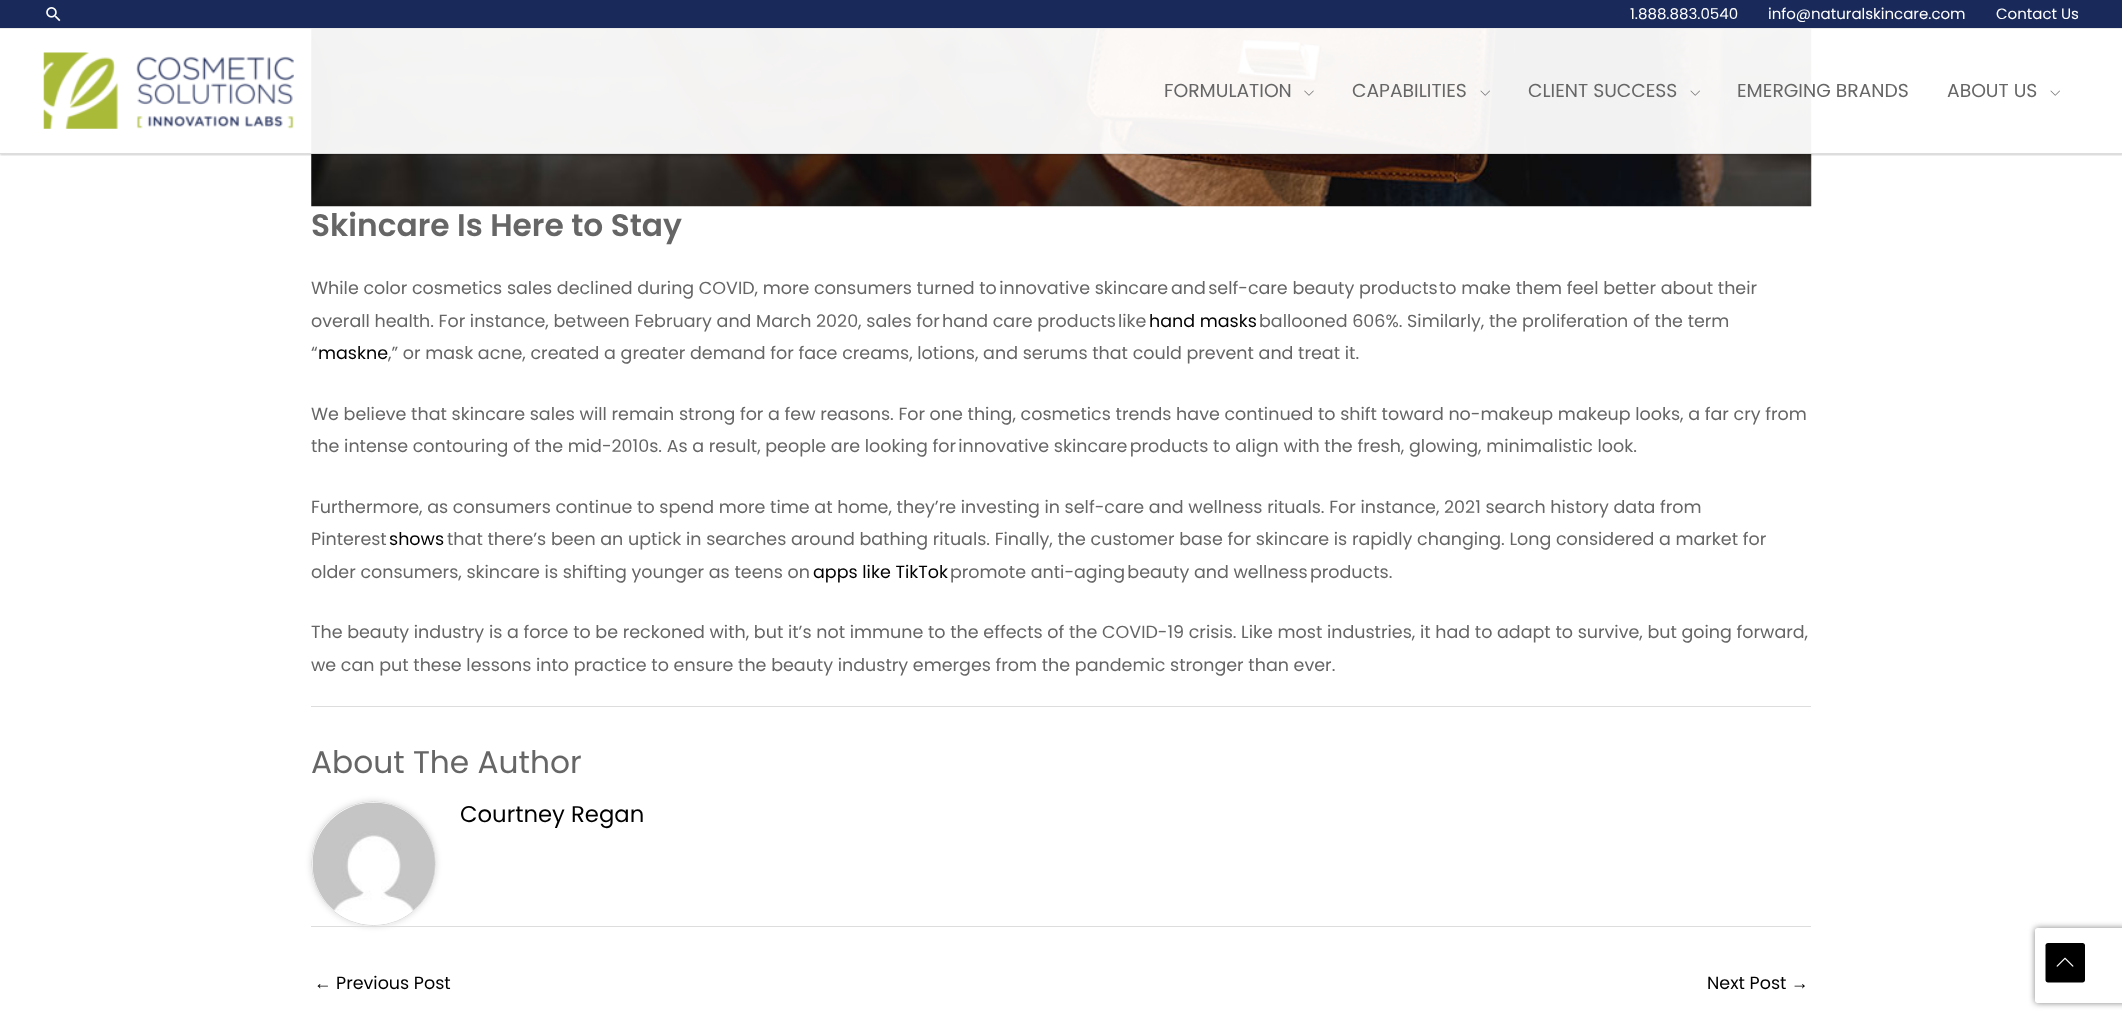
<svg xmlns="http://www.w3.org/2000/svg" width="2122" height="1020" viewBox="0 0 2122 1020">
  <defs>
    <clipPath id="clip1"><rect x="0" y="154" width="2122" height="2"/></clipPath>
    <clipPath id="clip2"><path d="M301 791H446V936H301ZM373.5 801C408 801 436 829 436 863.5C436 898 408 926 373.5 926C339 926 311 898 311 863.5C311 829 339 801 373.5 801Z" clip-rule="evenodd"/></clipPath>
    <clipPath id="clip3"><path d="M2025 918H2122V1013H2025ZM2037.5 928H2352.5C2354 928 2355 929 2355 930.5V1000.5C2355 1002 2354 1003 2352.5 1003H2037.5C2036 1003 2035 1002 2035 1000.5V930.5C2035 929 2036 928 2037.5 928Z" clip-rule="evenodd"/></clipPath>
  </defs>
  <rect width="100%" height="100%" fill="rgb(255,255,255)"/>
  <image x="311" y="29" width="1501" height="178" href="pic7.png"/>
  <g clip-path="url(#clip1)">
    <rect x="0" y="30" width="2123" height="125" fill="rgba(0,0,0,0.2)" filter="blur(1px)"/>
  </g>
  <rect x="0" y="0" width="2122" height="28" fill="rgb(25,42,90)"/>
  <rect x="0" y="28" width="2122" height="1" fill="rgb(234,234,234)"/>
  <image x="46" y="7" width="15" height="15" href="pic1.png"/>
  <g font-family="Poppins" font-size="15" fill="rgb(255,255,255)">
    <text x="1630" y="19">1.888.883.0540</text>
    <text x="1768" y="19">info@naturalskincare.com</text>
    <text x="1996" y="19">Contact Us</text>
  </g>
  <rect x="311" y="29" width="1501" height="124" fill="rgba(255,255,255,0.95)"/>
  <rect x="0" y="153" width="2122" height="1" fill="rgb(221,221,221)"/>
  <image x="43" y="52" width="251" height="77" href="pic2.png"/>
  <text x="1164" y="97" font-family="Poppins" font-size="18.75" fill="rgb(102,102,102)">FORMULATION</text>
  <image x="1304" y="90" width="10" height="6" href="pic3.png"/>
  <text x="1352" y="97" font-family="Poppins" font-size="18.75" fill="rgb(102,102,102)">CAPABILITIES</text>
  <image x="1480" y="90" width="10" height="6" href="pic4.png"/>
  <text x="1528" y="97" font-family="Poppins" font-size="18.75" fill="rgb(102,102,102)">CLIENT SUCCESS</text>
  <image x="1690" y="90" width="10" height="6" href="pic5.png"/>
  <g font-family="Poppins" font-size="18.75" fill="rgb(102,102,102)">
    <text x="1737" y="97">EMERGING BRANDS</text>
    <text x="1947" y="97">ABOUT US</text>
  </g>
  <image x="2050" y="90" width="10" height="6" href="pic6.png"/>
  <text x="311" y="236" font-family="Poppins" font-size="31.25" font-weight="600" fill="rgb(102,102,102)">Skincare Is Here to Stay</text>
  <g font-family="Poppins" font-size="17.5" fill="rgb(102,102,102)">
    <text x="311" y="294">While color cosmetics sales declined during COVID, more consumers turned to innovative skincare</text>
    <text x="1171" y="294">and self-care beauty products</text>
    <text x="1439" y="294">to make them feel better about their</text>
    <text x="311" y="327">overall health. For instance, between February and March 2020, sales for hand care products</text>
    <text x="1118" y="327">like</text>
  </g>
  <text x="1149" y="327" font-family="Poppins" font-size="17.5" fill="rgb(0,0,0)">hand masks</text>
  <g font-family="Poppins" font-size="17.5" fill="rgb(102,102,102)">
    <text x="1259" y="327">ballooned 606%. Similarly, the proliferation of the term</text>
    <text x="311" y="359">“</text>
  </g>
  <text x="318" y="359" font-family="Poppins" font-size="17.5" fill="rgb(0,0,0)">maskne</text>
  <g font-family="Poppins" font-size="17.5" fill="rgb(102,102,102)">
    <text x="388" y="359">,” or mask acne, created a greater demand for face creams, lotions, and serums that could prevent and treat it.</text>
    <text>
      <tspan x="311" y="420">We believe that skincare sales will remain strong for a few reasons. For one thing, cosmetics trends have continued to shift toward no-makeup makeup looks, a far cry from</tspan>
      <tspan x="311" y="452">the intense contouring of the mid-2010s. As a result, people are looking for innovative skincare products to align with the fresh, glowing, minimalistic look.</tspan>
    </text>
    <text>
      <tspan x="311" y="513">Furthermore, as consumers continue to spend more time at home, they’re investing in self-care and wellness rituals. For instance, 2021 search history data from</tspan>
      <tspan x="311" y="545">Pinterest</tspan>
    </text>
  </g>
  <text x="389" y="545" font-family="Poppins" font-size="17.5" fill="rgb(0,0,0)">shows</text>
  <g font-family="Poppins" font-size="17.5" fill="rgb(102,102,102)">
    <text x="447" y="545">that there’s been an uptick in searches around bathing rituals. Finally, the customer base for skincare is rapidly changing. Long considered a market for</text>
    <text x="311" y="578">older consumers, skincare is shifting younger as teens on</text>
  </g>
  <text x="813" y="578" font-family="Poppins" font-size="17.5" fill="rgb(0,0,0)">apps like TikTok</text>
  <g font-family="Poppins" font-size="17.5" fill="rgb(102,102,102)">
    <text x="950" y="578">promote anti-aging beauty and wellness products.</text>
    <text>
      <tspan x="311" y="638">The beauty industry is a force to be reckoned with, but it’s not immune to the effects of the COVID-19 crisis. Like most industries, it had to adapt to survive, but going forward,</tspan>
      <tspan x="311" y="671">we can put these lessons into practice to ensure the beauty industry emerges from the pandemic stronger than ever.</tspan>
    </text>
  </g>
  <rect x="311" y="706" width="1500" height="1" fill="rgb(221,221,221)"/>
  <text x="311" y="773" font-family="Poppins" font-size="31.25" fill="rgb(102,102,102)">About The Author</text>
  <g clip-path="url(#clip2)">
    <rect x="311" y="801" width="125" height="125" rx="62.5" fill="rgba(0,0,0,0.15)" filter="blur(3px)"/>
  </g>
  <circle cx="373.5" cy="863.5" r="62" fill="none" stroke="rgb(221,221,221)"/>
  <image x="312" y="802" width="123" height="123" href="pic8.png"/>
  <text x="460" y="822" font-family="Poppins" font-size="22.75" fill="rgb(0,0,0)">Courtney Regan</text>
  <rect x="311" y="926" width="1500" height="1" fill="rgb(221,221,221)"/>
  <text x="314" y="989" font-family="Liberation Sans" font-size="17.5" fill="rgb(0,0,0)">←</text>
  <g font-family="Poppins" font-size="17.5" fill="rgb(0,0,0)">
    <text x="336" y="989">Previous Post</text>
    <text x="1707" y="989">Next Post</text>
  </g>
  <text x="1791" y="989" font-family="Liberation Sans" font-size="17.5" fill="rgb(0,0,0)">→</text>
  <g clip-path="url(#clip3)">
    <rect x="2035" y="928" width="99" height="75" rx="2.5" fill="rgb(128,128,128)" filter="blur(3px)"/>
  </g>
  <path d="M2082.5 982.5H2048C2046.5 982.5 2045.5 981.5 2045.5 980V945.5C2045.5 944 2046.5 943 2048 943H2082.5C2084 943 2085 944 2085 945.5V980C2085 981.5 2084 982.5 2082.5 982.5Z" fill="rgb(0,0,0)"/>
  <image x="2056" y="957" width="18" height="10" href="pic9.png"/>
</svg>
